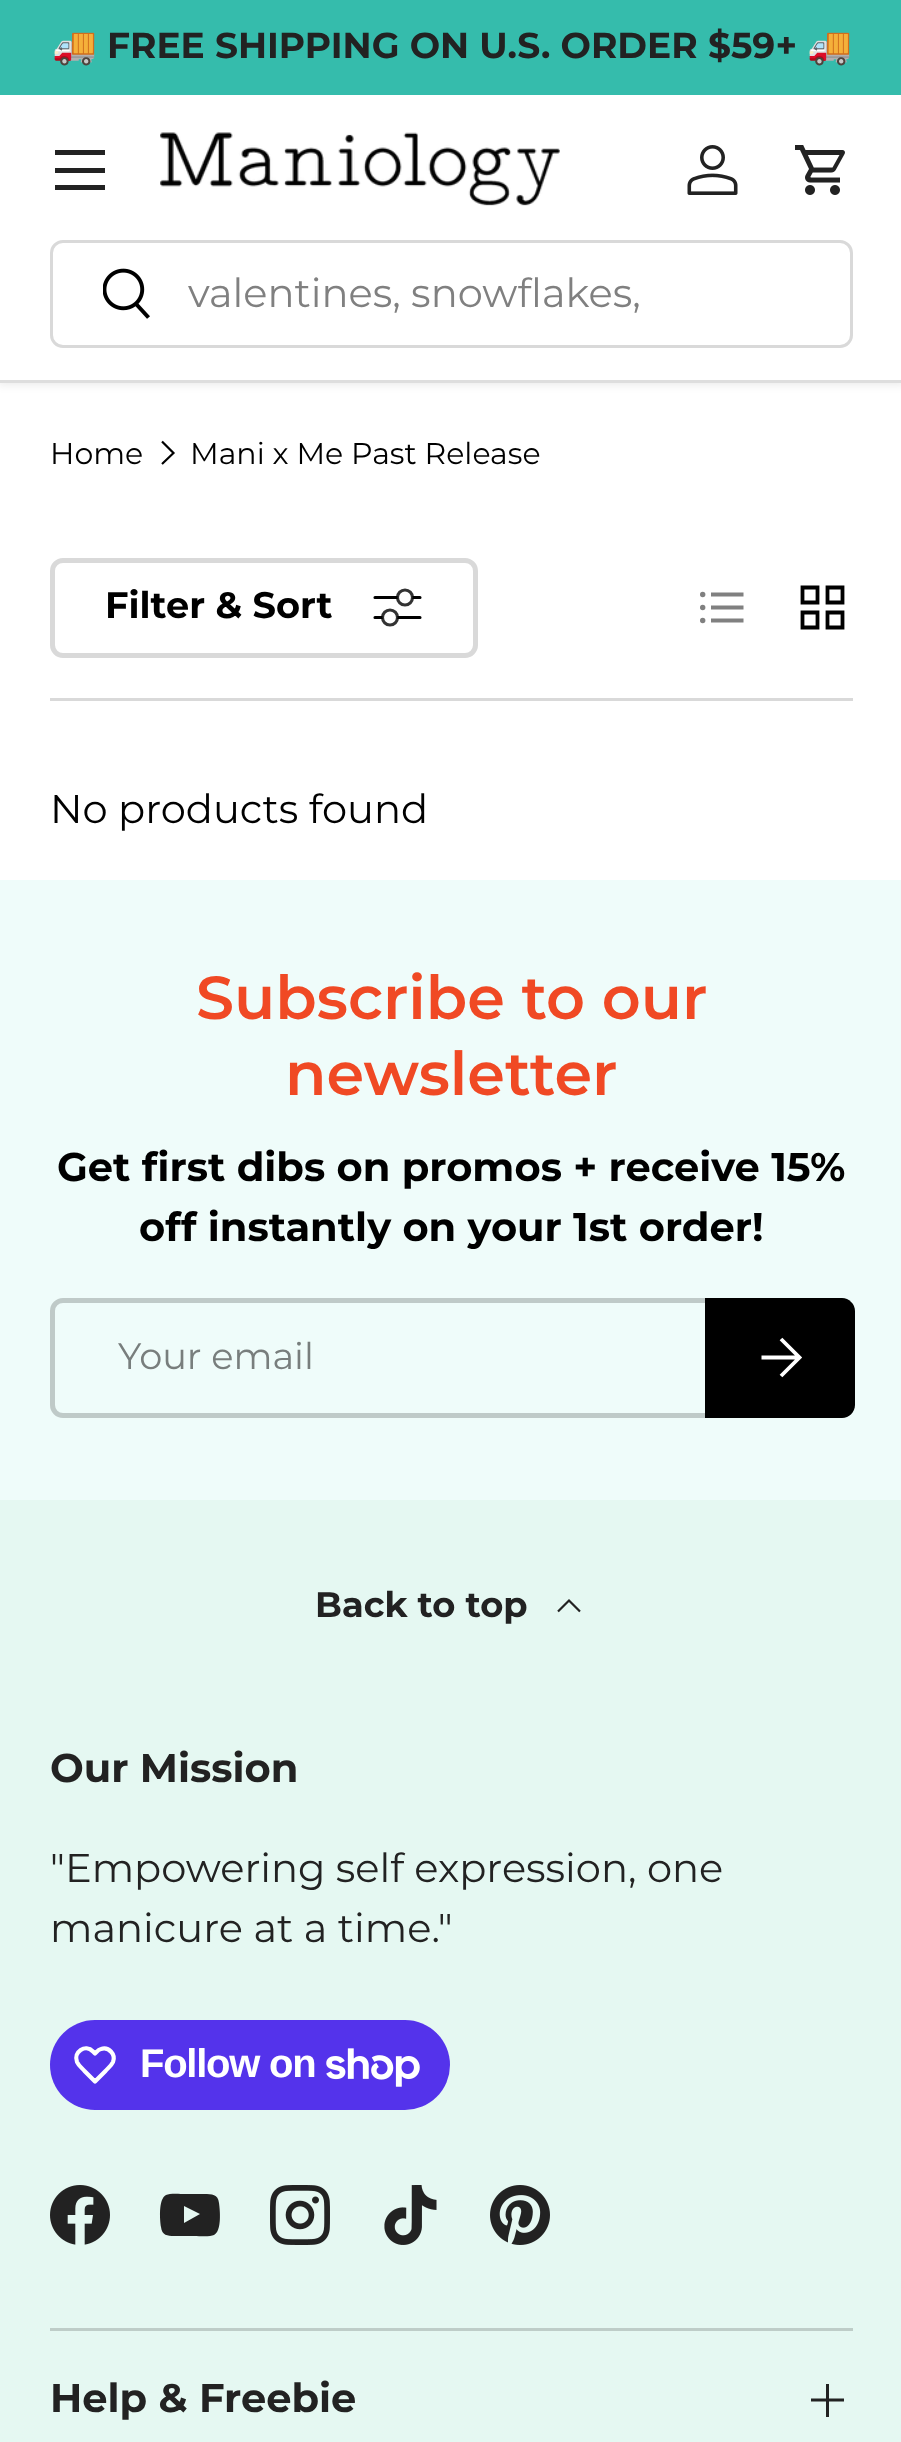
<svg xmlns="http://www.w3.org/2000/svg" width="901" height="2442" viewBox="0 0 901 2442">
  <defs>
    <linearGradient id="g1" gradientUnits="userSpaceOnUse" x1="404" y1="1301" x2="856" y2="1414"><stop offset="0.6" stop-color="rgb(46,46,46)"/><stop offset="0.6" stop-color="rgb(0,0,0)"/><stop offset="1" stop-color="rgb(0,0,0)"/></linearGradient>
  </defs>
  <rect width="100%" height="100%" fill="rgb(255,255,255)"/>
  <rect x="-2" y="93" width="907" height="292" fill="rgba(0,0,0,0.08)" filter="blur(4px)"/>
  <rect x="0" y="0" width="901" height="95" fill="rgb(53,188,172)"/>
  <text x="52" y="58" font-family="Noto Color Emoji" font-size="36" font-weight="bold" fill="rgb(34,34,34)">🚚</text>
  <text x="107" y="58" font-family="Montserrat" font-size="36" font-weight="bold" fill="rgb(34,34,34)">FREE SHIPPING ON U.S. ORDER $59+</text>
  <text x="807" y="58" font-family="Noto Color Emoji" font-size="36" font-weight="bold" fill="rgb(34,34,34)">🚚</text>
  <rect x="0" y="95" width="901" height="285" fill="rgb(255,255,255)"/>
  <rect x="55" y="150" width="50" height="5" fill="rgb(34,34,34)"/>
  <rect x="55" y="185" width="50" height="5" fill="rgb(34,34,34)"/>
  <rect x="55" y="168" width="50" height="5" fill="rgb(34,34,34)"/>
  <image x="160" y="132" width="400" height="74" href="pic1.png"/>
  <image x="687" y="145" width="51" height="50" href="pic2.png"/>
  <image x="795" y="145" width="50" height="50" href="pic3.png"/>
  <rect x="51.5" y="241.5" width="800" height="105" rx="11.5" fill="none" stroke="rgb(217,217,217)" stroke-width="3"/>
  <image x="103" y="268" width="47" height="51" href="pic4.png"/>
  <text x="188" y="307" font-family="Montserrat" font-size="40" fill="rgb(128,128,128)">valentines, snowflakes,</text>
  <rect x="0" y="380" width="901" height="3" fill="rgb(222,222,222)"/>
  <text x="50" y="464" font-family="Montserrat" font-size="30" fill="rgb(0,0,0)">Home</text>
  <path d="M162 441.5L173.5 453L162 464" fill="none" stroke="rgb(0,0,0)" stroke-width="2.2"/>
  <text x="190" y="464" font-family="Montserrat" font-size="30" fill="rgb(0,0,0)">Mani x Me Past Release</text>
  <rect x="50" y="698" width="803" height="3" fill="rgb(217,217,217)"/>
  <rect x="52.5" y="560.5" width="423" height="95" rx="10.5" fill="none" stroke="rgb(217,217,217)" stroke-width="5"/>
  <text x="105" y="618" font-family="Montserrat" font-size="36.75" font-weight="bold" fill="rgb(0,0,0)">Filter &amp; Sort</text>
  <path d="M375 597.5H420M375 617.5H420" fill="none" stroke="rgb(0,0,0)" stroke-width="3.1" stroke-linecap="round" stroke-linejoin="round"/>
  <circle cx="405" cy="597.5" r="7.5" fill="rgb(255,255,255)" stroke="rgba(0,0,0,0.8)" stroke-width="3.1"/>
  <circle cx="390" cy="617.5" r="7.5" fill="rgb(255,255,255)" stroke="rgba(0,0,0,0.8)" stroke-width="3.1"/>
  <circle cx="702.7" cy="594.5" r="2.7" fill="rgb(128,128,128)"/>
  <path d="M711 594.5H743.5" fill="none" stroke="rgb(128,128,128)" stroke-width="3.8"/>
  <circle cx="702.7" cy="607.5" r="2.7" fill="rgb(128,128,128)"/>
  <path d="M711 607.5H743.5" fill="none" stroke="rgb(128,128,128)" stroke-width="3.8"/>
  <circle cx="702.7" cy="620.5" r="2.7" fill="rgb(128,128,128)"/>
  <path d="M711 620.5H743.5" fill="none" stroke="rgb(128,128,128)" stroke-width="3.8"/>
  <path d="M802.5 587.5H817.5V602.5H802.5ZM827.5 587.5H842.5V602.5H827.5ZM802.5 612.5H817.5V627.5H802.5ZM827.5 612.5H842.5V627.5H827.5Z" fill="none" stroke="rgb(0,0,0)" stroke-width="3.8"/>
  <text x="50" y="823" font-family="Montserrat" font-size="40" fill="rgb(0,0,0)">No products found</text>
  <rect x="0" y="880" width="901" height="620" fill="rgb(239,252,250)"/>
  <g font-family="Montserrat" font-size="60.5" font-weight="600" fill="rgb(240,73,36)">
    <text x="196" y="1019">Subscribe to our</text>
    <text x="285" y="1095">newsletter</text>
  </g>
  <g font-family="Montserrat" font-size="40" font-weight="bold" fill="rgb(0,0,0)">
    <text x="57" y="1181">Get first dibs on promos + receive 15%</text>
    <text x="139" y="1241">off instantly on your 1st order!</text>
  </g>
  <rect x="52.5" y="1300.5" width="798" height="115" rx="10.5" fill="none" stroke="rgb(191,202,200)" stroke-width="5"/>
  <text x="118" y="1369" font-family="Montserrat" font-size="36.75" fill="rgb(120,126,125)">Your email</text>
  <path d="M705 1298H842C849 1298 855 1304 855 1311V1405C855 1412 849 1418 842 1418H705Z" fill="url(#g1)"/>
  <path d="M761.5 1357.5H798.5M781 1339L799.5 1357.5L781 1376" fill="none" stroke="rgb(255,255,255)" stroke-width="3.8"/>
  <rect x="0" y="1500" width="901" height="942" fill="rgb(229,248,242)"/>
  <text x="315" y="1617" font-family="Montserrat" font-size="35.25" font-weight="bold" fill="rgb(34,34,34)">Back to top</text>
  <path d="M558 1611.5L569 1600.5L580 1611.5" fill="none" stroke="rgb(34,34,34)" stroke-width="2.2"/>
  <text x="50" y="1782" font-family="Montserrat" font-size="40" font-weight="bold" fill="rgb(34,34,34)">Our Mission</text>
  <g font-family="Montserrat" font-size="40" fill="rgb(34,34,34)">
    <text>
      <tspan x="50" y="1882">"Empowering self expression, one</tspan>
      <tspan x="50" y="1942">manicure at a time."</tspan>
    </text>
  </g>
  <rect x="50" y="2020" width="400" height="90" rx="45" fill="rgb(84,51,235)"/>
  <path d="M93 2051.5L95 2053.5C97 2051.5 98.5 2049.5 101 2049C109 2046.5 116 2054.5 113 2062C111.5 2065.5 108 2068 105.5 2071L95 2081.5L84.5 2071C82 2068 78.5 2065.5 77 2062C73 2052 85.5 2043.5 93 2051.5Z" fill="none" stroke="rgb(255,255,255)" stroke-width="4.2" stroke-linejoin="round"/>
  <text x="140" y="2077" font-family="Liberation Sans" font-size="40" font-weight="bold" letter-spacing="-1.25" fill="rgb(255,255,255)">Follow on</text>
  <image x="326" y="2048" width="94" height="39" href="pic5.png"/>
  <image x="50" y="2185" width="60" height="60" href="pic6.png"/>
  <path d="M184 2223V2206L200 2214ZM219 2203C218 2194 212 2194 204 2194H186C180 2194 170 2193 166 2195C158 2199 160 2221 161 2227C162 2237 170 2236 178 2236H194C200 2236 210 2237 214 2235C222 2231 220 2210 219 2203Z" fill="rgb(34,34,34)"/>
  <image x="270" y="2185" width="60" height="60" href="pic7.png"/>
  <image x="384" y="2185" width="53" height="60" href="pic8.png"/>
  <image x="490" y="2185" width="60" height="60" href="pic9.png"/>
  <rect x="50" y="2328" width="803" height="3" fill="rgb(190,205,200)"/>
  <text x="50" y="2412" font-family="Montserrat" font-size="40" font-weight="bold" fill="rgb(34,34,34)">Help &amp; Freebie</text>
  <path d="M811 2400H844" fill="none" stroke="rgb(34,34,34)" stroke-width="3.1"/>
  <rect x="826" y="2384" width="3" height="33" fill="rgb(34,34,34)"/>
</svg>
